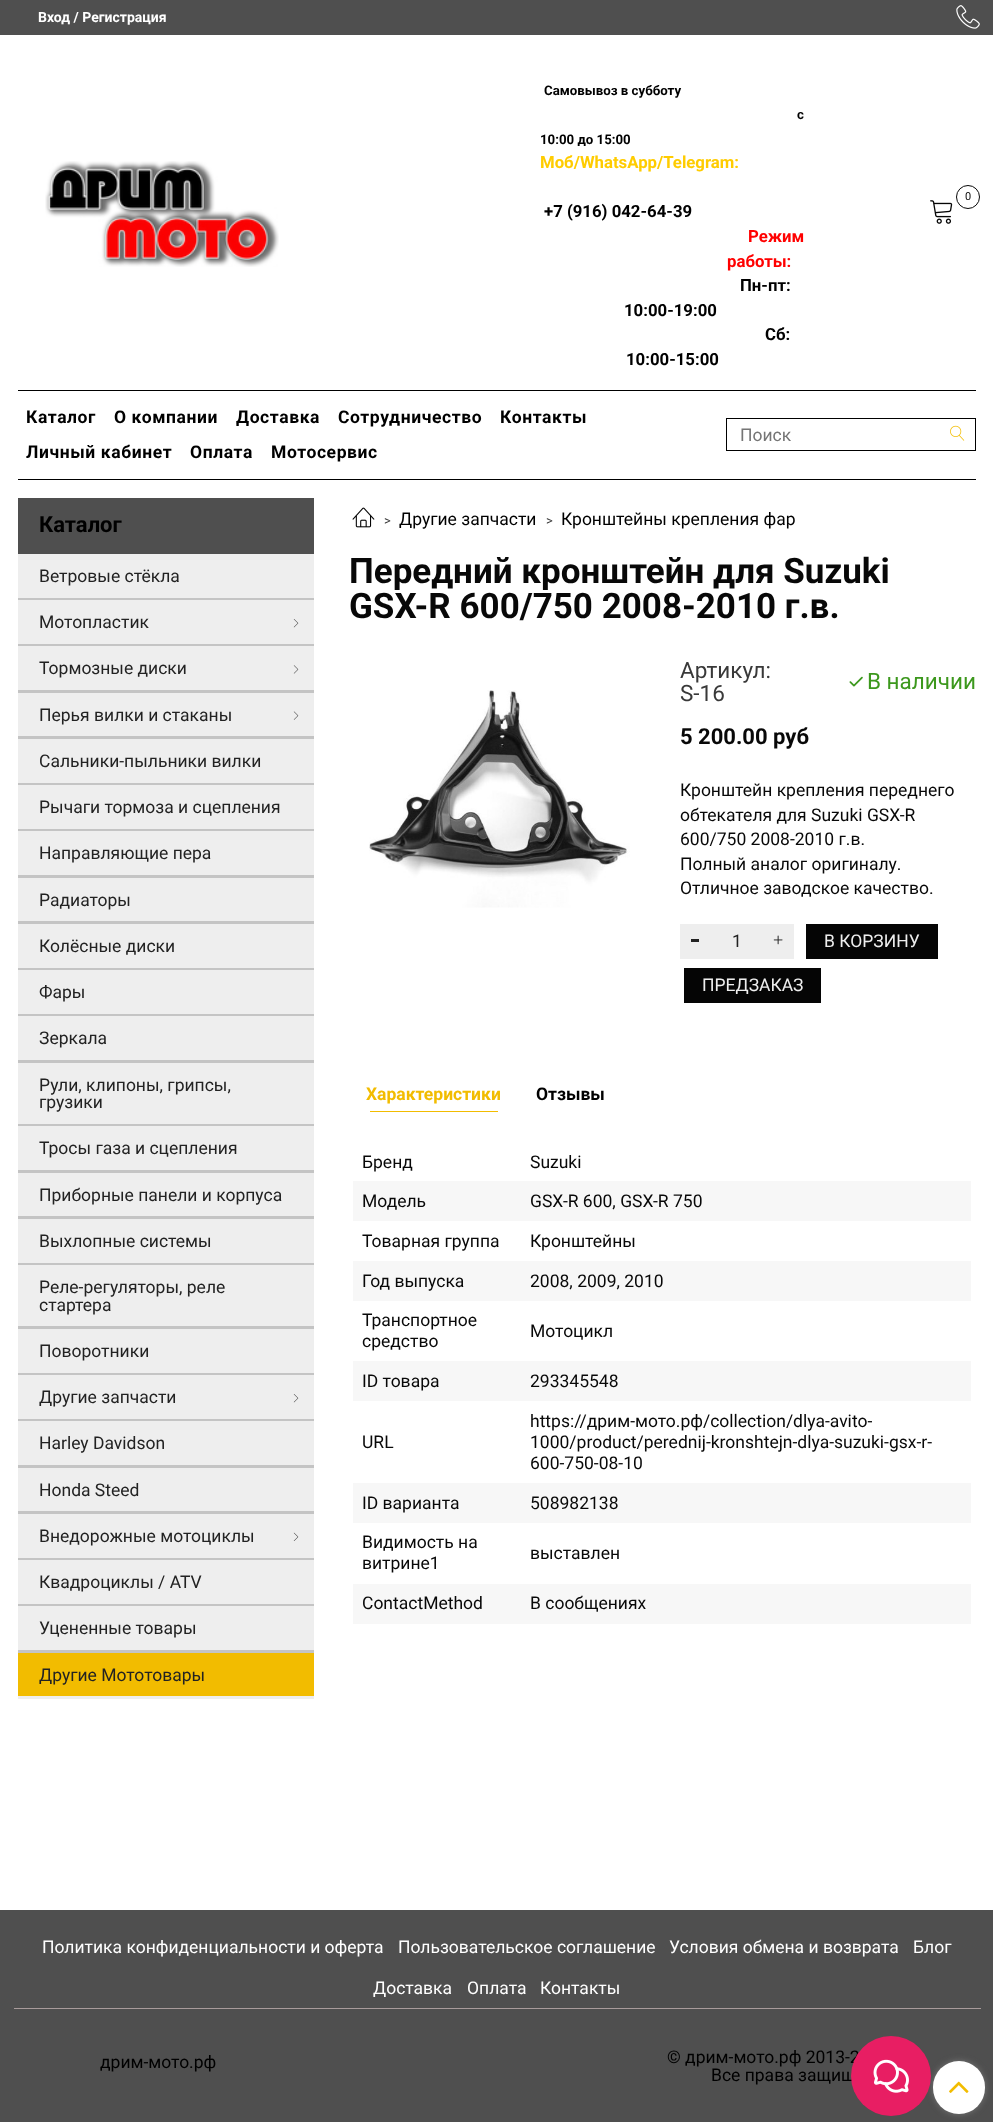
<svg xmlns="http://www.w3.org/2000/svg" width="993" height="2122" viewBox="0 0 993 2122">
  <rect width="100%" height="100%" fill="rgb(255,255,255)"/>
  <rect x="0" y="0" width="993" height="35" fill="rgb(79,79,79)"/>
  <text x="38" y="22" font-family="Roboto" font-size="14" font-weight="bold" fill="rgb(255,255,255)">Вход / Регистрация</text>
  <image x="956" y="5" width="24" height="24" href="pic1.png"/>
  <image x="45" y="161" width="234" height="106" href="pic2.png"/>
  <g font-family="Roboto" font-size="13.25" font-weight="bold" fill="rgb(0,0,0)">
    <text x="544" y="95">Самовывоз в субботу</text>
    <text x="797" y="119">с</text>
    <text x="540" y="144">10:00 до 15:00</text>
  </g>
  <text x="540" y="168" font-family="Roboto" font-size="16.75" font-weight="bold" fill="rgb(255,204,0)">Моб/WhatsApp/Telegram:</text>
  <text x="544" y="217" font-family="Roboto" font-size="16.75" font-weight="bold" fill="rgb(0,0,0)">+7 (916) 042-64-39</text>
  <g font-family="Roboto" font-size="16.75" font-weight="bold" fill="rgb(255,0,0)">
    <text x="748" y="242">Режим</text>
    <text x="727" y="267">работы:</text>
  </g>
  <g font-family="Roboto" font-size="16.75" font-weight="bold" fill="rgb(0,0,0)">
    <text x="740" y="291">Пн-пт:</text>
    <text x="624" y="316">10:00-19:00</text>
    <text x="765" y="340">Сб:</text>
    <text x="626" y="365">10:00-15:00</text>
  </g>
  <circle cx="968" cy="197" r="11.5" fill="none" stroke="rgb(8,8,8)"/>
  <text x="965" y="200" font-family="Roboto" font-size="11" fill="rgb(8,8,8)">0</text>
  <image x="930" y="200" width="23" height="24" href="pic3.png"/>
  <rect x="18" y="390" width="958" height="1" fill="rgb(0,0,0)"/>
  <rect x="18" y="479" width="958" height="1" fill="rgb(0,0,0)"/>
  <g font-family="Roboto" font-size="17.5" font-weight="bold" letter-spacing="0.6" fill="rgb(0,0,0)">
    <text x="26" y="423">Каталог</text>
    <text x="114" y="423">О компании</text>
    <text x="236" y="423">Доставка</text>
    <text x="338" y="423">Сотрудничество</text>
    <text x="500" y="423">Контакты</text>
    <text x="26" y="458">Личный кабинет</text>
    <text x="190" y="458">Оплата</text>
    <text x="271" y="458">Мотосервис</text>
  </g>
  <rect x="726.5" y="418.5" width="249" height="32" fill="none" stroke="rgb(0,0,0)"/>
  <text x="740" y="441" font-family="Roboto" font-size="17.5" fill="rgb(117,117,117)">Поиск</text>
  <image x="950" y="425" width="15" height="16" href="pic4.png"/>
  <rect x="18" y="498" width="296" height="56" fill="rgb(79,79,79)"/>
  <text x="39" y="532" font-family="Roboto" font-size="22" font-weight="bold" fill="rgb(0,0,0)">Каталог</text>
  <rect x="18" y="554" width="296" height="44" fill="rgb(238,238,238)"/>
  <rect x="18" y="598" width="296" height="2" fill="rgb(196,196,196)"/>
  <text x="39" y="582" font-family="Roboto" font-size="17.5" fill="rgb(34,34,34)">Ветровые стёкла</text>
  <rect x="18" y="600" width="296" height="44" fill="rgb(238,238,238)"/>
  <rect x="18" y="644" width="296" height="2" fill="rgb(196,196,196)"/>
  <text x="39" y="628" font-family="Roboto" font-size="17.5" fill="rgb(34,34,34)">Мотопластик</text>
  <image x="293" y="619" width="6" height="9" href="pic5.png"/>
  <rect x="18" y="646" width="296" height="44" fill="rgb(238,238,238)"/>
  <rect x="18" y="690" width="296" height="3" fill="rgb(196,196,196)"/>
  <text x="39" y="674" font-family="Roboto" font-size="17.5" fill="rgb(34,34,34)">Тормозные диски</text>
  <image x="293" y="665" width="6" height="9" href="pic6.png"/>
  <rect x="18" y="693" width="296" height="43" fill="rgb(238,238,238)"/>
  <rect x="18" y="736" width="296" height="3" fill="rgb(196,196,196)"/>
  <text x="39" y="721" font-family="Roboto" font-size="17.5" fill="rgb(34,34,34)">Перья вилки и стаканы</text>
  <image x="293" y="711" width="6" height="9" href="pic7.png"/>
  <rect x="18" y="739" width="296" height="44" fill="rgb(238,238,238)"/>
  <rect x="18" y="783" width="296" height="2" fill="rgb(196,196,196)"/>
  <text x="39" y="767" font-family="Roboto" font-size="17.5" fill="rgb(34,34,34)">Сальники-пыльники вилки</text>
  <rect x="18" y="785" width="296" height="44" fill="rgb(238,238,238)"/>
  <rect x="18" y="829" width="296" height="2" fill="rgb(196,196,196)"/>
  <text x="39" y="813" font-family="Roboto" font-size="17.5" fill="rgb(34,34,34)">Рычаги тормоза и сцепления</text>
  <rect x="18" y="831" width="296" height="44" fill="rgb(238,238,238)"/>
  <rect x="18" y="875" width="296" height="3" fill="rgb(196,196,196)"/>
  <text x="39" y="859" font-family="Roboto" font-size="17.5" fill="rgb(34,34,34)">Направляющие пера</text>
  <rect x="18" y="878" width="296" height="43" fill="rgb(238,238,238)"/>
  <rect x="18" y="921" width="296" height="3" fill="rgb(196,196,196)"/>
  <text x="39" y="906" font-family="Roboto" font-size="17.5" fill="rgb(34,34,34)">Радиаторы</text>
  <rect x="18" y="924" width="296" height="44" fill="rgb(238,238,238)"/>
  <rect x="18" y="968" width="296" height="2" fill="rgb(196,196,196)"/>
  <text x="39" y="952" font-family="Roboto" font-size="17.5" fill="rgb(34,34,34)">Колёсные диски</text>
  <rect x="18" y="970" width="296" height="44" fill="rgb(238,238,238)"/>
  <rect x="18" y="1014" width="296" height="2" fill="rgb(196,196,196)"/>
  <text x="39" y="998" font-family="Roboto" font-size="17.5" fill="rgb(34,34,34)">Фары</text>
  <rect x="18" y="1016" width="296" height="44" fill="rgb(238,238,238)"/>
  <rect x="18" y="1060" width="296" height="3" fill="rgb(196,196,196)"/>
  <text x="39" y="1044" font-family="Roboto" font-size="17.5" fill="rgb(34,34,34)">Зеркала</text>
  <rect x="18" y="1063" width="296" height="61" fill="rgb(238,238,238)"/>
  <rect x="18" y="1124" width="296" height="2" fill="rgb(196,196,196)"/>
  <g font-family="Roboto" font-size="17.5" fill="rgb(34,34,34)">
    <text>
      <tspan x="39" y="1091">Рули, клипоны, грипсы,</tspan>
      <tspan x="39" y="1108">грузики</tspan>
    </text>
  </g>
  <rect x="18" y="1126" width="296" height="44" fill="rgb(238,238,238)"/>
  <rect x="18" y="1170" width="296" height="3" fill="rgb(196,196,196)"/>
  <text x="39" y="1154" font-family="Roboto" font-size="17.5" fill="rgb(34,34,34)">Тросы газа и сцепления</text>
  <rect x="18" y="1173" width="296" height="43" fill="rgb(238,238,238)"/>
  <rect x="18" y="1216" width="296" height="3" fill="rgb(196,196,196)"/>
  <text x="39" y="1201" font-family="Roboto" font-size="17.5" fill="rgb(34,34,34)">Приборные панели и корпуса</text>
  <rect x="18" y="1219" width="296" height="44" fill="rgb(238,238,238)"/>
  <rect x="18" y="1263" width="296" height="2" fill="rgb(196,196,196)"/>
  <text x="39" y="1247" font-family="Roboto" font-size="17.5" fill="rgb(34,34,34)">Выхлопные системы</text>
  <rect x="18" y="1265" width="296" height="61" fill="rgb(238,238,238)"/>
  <rect x="18" y="1326" width="296" height="3" fill="rgb(196,196,196)"/>
  <g font-family="Roboto" font-size="17.5" fill="rgb(34,34,34)">
    <text>
      <tspan x="39" y="1293">Реле-регуляторы, реле</tspan>
      <tspan x="39" y="1311">стартера</tspan>
    </text>
  </g>
  <rect x="18" y="1329" width="296" height="44" fill="rgb(238,238,238)"/>
  <rect x="18" y="1373" width="296" height="2" fill="rgb(196,196,196)"/>
  <text x="39" y="1357" font-family="Roboto" font-size="17.5" fill="rgb(34,34,34)">Поворотники</text>
  <rect x="18" y="1375" width="296" height="44" fill="rgb(238,238,238)"/>
  <rect x="18" y="1419" width="296" height="2" fill="rgb(196,196,196)"/>
  <text x="39" y="1403" font-family="Roboto" font-size="17.5" fill="rgb(34,34,34)">Другие запчасти</text>
  <image x="293" y="1394" width="6" height="9" href="pic5.png"/>
  <rect x="18" y="1421" width="296" height="44" fill="rgb(238,238,238)"/>
  <rect x="18" y="1465" width="296" height="3" fill="rgb(196,196,196)"/>
  <text x="39" y="1449" font-family="Roboto" font-size="17.5" fill="rgb(34,34,34)">Harley Davidson</text>
  <rect x="18" y="1468" width="296" height="43" fill="rgb(238,238,238)"/>
  <rect x="18" y="1511" width="296" height="3" fill="rgb(196,196,196)"/>
  <text x="39" y="1496" font-family="Roboto" font-size="17.5" fill="rgb(34,34,34)">Honda Steed</text>
  <rect x="18" y="1514" width="296" height="44" fill="rgb(238,238,238)"/>
  <rect x="18" y="1558" width="296" height="2" fill="rgb(196,196,196)"/>
  <text x="39" y="1542" font-family="Roboto" font-size="17.5" fill="rgb(34,34,34)">Внедорожные мотоциклы</text>
  <image x="293" y="1532" width="6" height="9" href="pic8.png"/>
  <rect x="18" y="1560" width="296" height="44" fill="rgb(238,238,238)"/>
  <rect x="18" y="1604" width="296" height="2" fill="rgb(196,196,196)"/>
  <text x="39" y="1588" font-family="Roboto" font-size="17.5" fill="rgb(34,34,34)">Квадроциклы / ATV</text>
  <rect x="18" y="1606" width="296" height="44" fill="rgb(238,238,238)"/>
  <rect x="18" y="1650" width="296" height="3" fill="rgb(196,196,196)"/>
  <text x="39" y="1634" font-family="Roboto" font-size="17.5" fill="rgb(34,34,34)">Уцененные товары</text>
  <rect x="18" y="1653" width="296" height="43" fill="rgb(242,188,0)"/>
  <rect x="18" y="1696" width="296" height="3" fill="rgb(238,238,238)"/>
  <text x="39" y="1681" font-family="Roboto" font-size="17.5" fill="rgb(34,34,34)">Другие Мототовары</text>
  <image x="352" y="507" width="23" height="21" href="pic9.png"/>
  <text x="384" y="525" font-family="Roboto" font-size="13" fill="rgb(57,57,57)">&gt;</text>
  <text x="399" y="525" font-family="Roboto" font-size="17.5" fill="rgb(0,0,0)">Другие запчасти</text>
  <text x="546" y="525" font-family="Roboto" font-size="13" fill="rgb(57,57,57)">&gt;</text>
  <text x="561" y="525" font-family="Roboto" font-size="17.5" fill="rgb(0,0,0)">Кронштейны крепления фар</text>
  <g font-family="Roboto" font-size="35" font-weight="bold" fill="rgb(8,8,8)">
    <text>
      <tspan x="349" y="583">Передний кронштейн для Suzuki</tspan>
      <tspan x="349" y="618">GSX-R 600/750 2008-2010 г.в.</tspan>
    </text>
  </g>
  <image x="369" y="690" width="261" height="218" href="pic10.png"/>
  <g font-family="Roboto" font-size="22.5" fill="rgb(57,57,57)">
    <text>
      <tspan x="680" y="678">Артикул:</tspan>
      <tspan x="680" y="701">S-16</tspan>
    </text>
  </g>
  <image x="849" y="676" width="14" height="11" href="pic11.png"/>
  <text x="867" y="689" font-family="Roboto" font-size="22.5" fill="rgb(60,152,29)">В наличии</text>
  <text x="680" y="744" font-family="Roboto" font-size="22" font-weight="bold" fill="rgb(8,8,8)">5 200.00 руб</text>
  <g font-family="Roboto" font-size="17.5" fill="rgb(8,8,8)">
    <text>
      <tspan x="680" y="796">Кронштейн крепления переднего</tspan>
      <tspan x="680" y="821">обтекателя для Suzuki GSX-R</tspan>
      <tspan x="680" y="845">600/750 2008-2010 г.в.</tspan>
      <tspan x="680" y="870">Полный аналог оригиналу.</tspan>
      <tspan x="680" y="894">Отличное заводское качество.</tspan>
    </text>
  </g>
  <rect x="680" y="924" width="114" height="35" fill="rgb(238,238,238)"/>
  <rect x="691" y="939" width="8" height="3" fill="rgb(34,34,34)"/>
  <text x="732" y="947" font-family="Roboto" font-size="17.5" fill="rgb(34,34,34)">1</text>
  <image x="773" y="935" width="10" height="10" href="pic12.png"/>
  <rect x="806" y="924" width="132" height="35" fill="rgb(5,5,5)"/>
  <text x="824" y="947" font-family="Roboto" font-size="17.5" fill="rgb(238,238,238)">В КОРЗИНУ</text>
  <rect x="684" y="968" width="137" height="35" fill="rgb(5,5,5)"/>
  <text x="702" y="991" font-family="Roboto" font-size="17.5" fill="rgb(238,238,238)">ПРЕДЗАКАЗ</text>
  <text x="366" y="1100" font-family="Roboto" font-size="17.5" font-weight="bold" fill="rgb(242,188,0)">Характеристики</text>
  <rect x="370" y="1111" width="128" height="1" fill="rgb(242,188,0)"/>
  <text x="536" y="1100" font-family="Roboto" font-size="17.5" font-weight="bold" fill="rgb(0,0,0)">Отзывы</text>
  <g font-family="Roboto" font-size="17.5" fill="rgb(8,8,8)">
    <text x="362" y="1168">Бренд</text>
    <text x="530" y="1168">Suzuki</text>
  </g>
  <rect x="353" y="1181" width="618" height="40" fill="rgb(247,247,247)"/>
  <g font-family="Roboto" font-size="17.5" fill="rgb(8,8,8)">
    <text x="362" y="1207">Модель</text>
    <text x="530" y="1207">GSX-R 600, GSX-R 750</text>
    <text x="362" y="1247">Товарная группа</text>
    <text x="530" y="1247">Кронштейны</text>
  </g>
  <rect x="353" y="1261" width="618" height="40" fill="rgb(247,247,247)"/>
  <g font-family="Roboto" font-size="17.5" fill="rgb(8,8,8)">
    <text x="362" y="1287">Год выпуска</text>
    <text x="530" y="1287">2008, 2009, 2010</text>
    <text>
      <tspan x="362" y="1326">Транспортное</tspan>
      <tspan x="362" y="1347">средство</tspan>
    </text>
    <text x="530" y="1337">Мотоцикл</text>
  </g>
  <rect x="353" y="1361" width="618" height="40" fill="rgb(247,247,247)"/>
  <g font-family="Roboto" font-size="17.5" fill="rgb(8,8,8)">
    <text x="362" y="1387">ID товара</text>
    <text x="530" y="1387">293345548</text>
    <text x="362" y="1448">URL</text>
    <text>
      <tspan x="530" y="1427">https://дрим-мото.рф/collection/dlya-avito-</tspan>
      <tspan x="530" y="1448">1000/product/perednij-kronshtejn-dlya-suzuki-gsx-r-</tspan>
      <tspan x="530" y="1469">600-750-08-10</tspan>
    </text>
  </g>
  <rect x="353" y="1483" width="618" height="40" fill="rgb(247,247,247)"/>
  <g font-family="Roboto" font-size="17.5" fill="rgb(8,8,8)">
    <text x="362" y="1509">ID варианта</text>
    <text x="530" y="1509">508982138</text>
    <text>
      <tspan x="362" y="1548">Видимость на</tspan>
      <tspan x="362" y="1569">витрине1</tspan>
    </text>
    <text x="530" y="1559">выставлен</text>
  </g>
  <rect x="353" y="1584" width="618" height="40" fill="rgb(247,247,247)"/>
  <g font-family="Roboto" font-size="17.5" fill="rgb(8,8,8)">
    <text x="362" y="1609">ContactMethod</text>
    <text x="530" y="1609">В сообщениях</text>
  </g>
  <rect x="0" y="1910" width="993" height="212" fill="rgb(79,79,79)"/>
  <rect x="14" y="2008" width="967" height="1" fill="rgb(168,155,155)"/>
  <g font-family="Roboto" font-size="17.5" fill="rgb(255,255,255)">
    <text x="42" y="1953">Политика конфиденциальности и оферта</text>
    <text x="398" y="1953">Пользовательское соглашение</text>
    <text x="669" y="1953">Условия обмена и возврата</text>
    <text x="913" y="1953">Блог</text>
    <text x="373" y="1994">Доставка</text>
    <text x="467" y="1994">Оплата</text>
    <text x="540" y="1994">Контакты</text>
  </g>
  <g font-family="Roboto" font-size="17.5" fill="rgb(0,0,0)">
    <text x="100" y="2068">дрим-мото.рф</text>
    <text x="667" y="2063">© дрим-мото.рф 2013-2</text>
    <text x="711" y="2081">Все права защищ</text>
  </g>
  <rect x="933" y="2061" width="52" height="53" rx="26" fill="rgb(119,119,119)" filter="blur(3px)"/>
  <rect x="933" y="2061" width="52" height="53" rx="26" fill="rgb(255,255,255)"/>
  <image x="949" y="2081" width="20" height="12" href="pic13.png"/>
  <circle cx="891" cy="2076" r="40" fill="rgb(232,30,99)"/>
  <image x="873" y="2059" width="36" height="34" href="pic14.png"/>
</svg>
